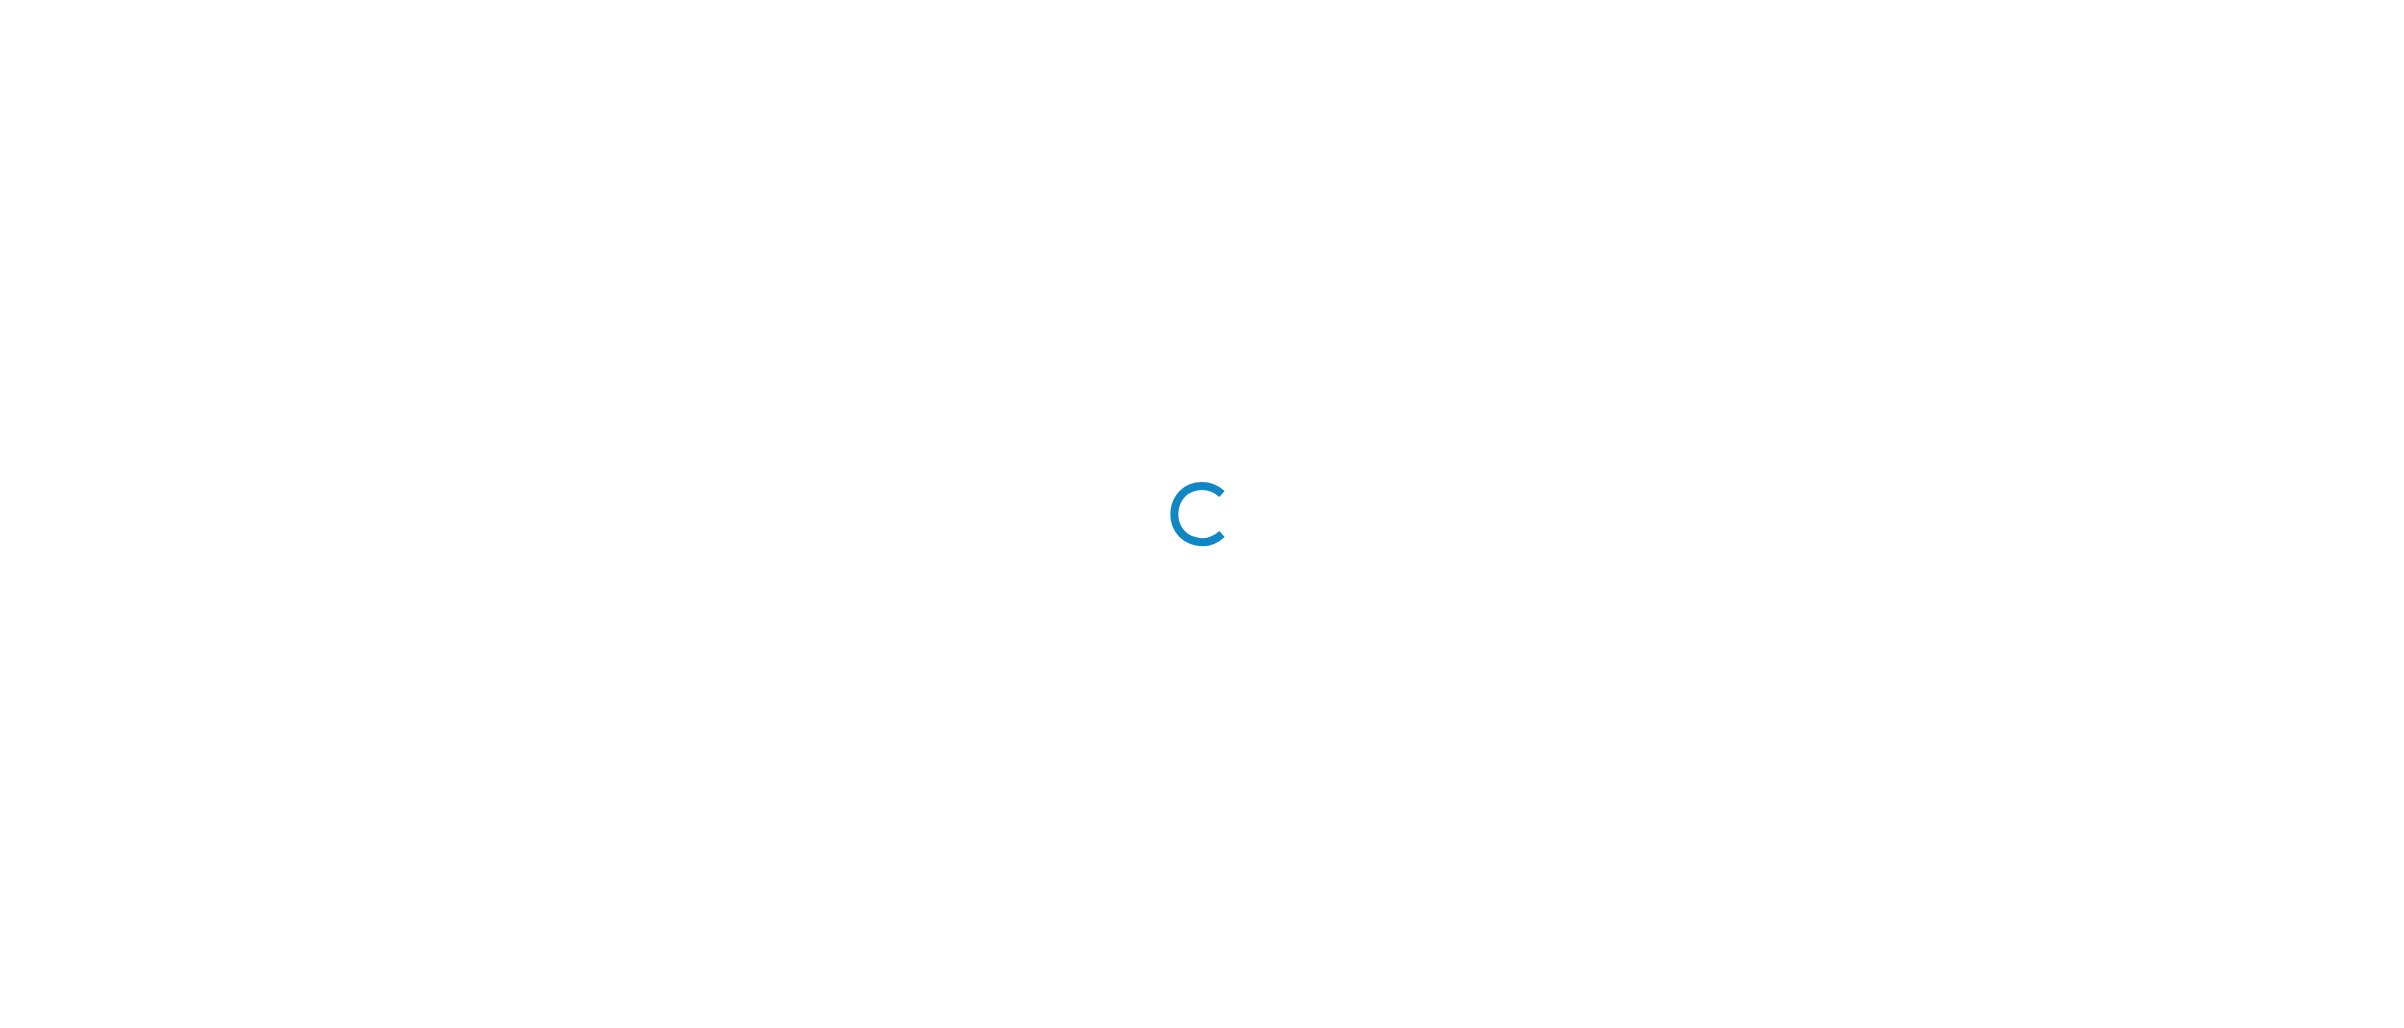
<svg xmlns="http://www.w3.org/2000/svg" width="2404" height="1028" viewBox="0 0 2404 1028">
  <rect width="100%" height="100%" fill="rgb(255,255,255)"/>
  <path d="M1222 534C1215 540.5 1205.5 543.5 1196.5 541.5C1164 535 1168.5 486 1202 486C1209.5 486 1216.5 489 1222 494" fill="none" stroke="rgb(16,135,195)" stroke-width="8"/>
</svg>
